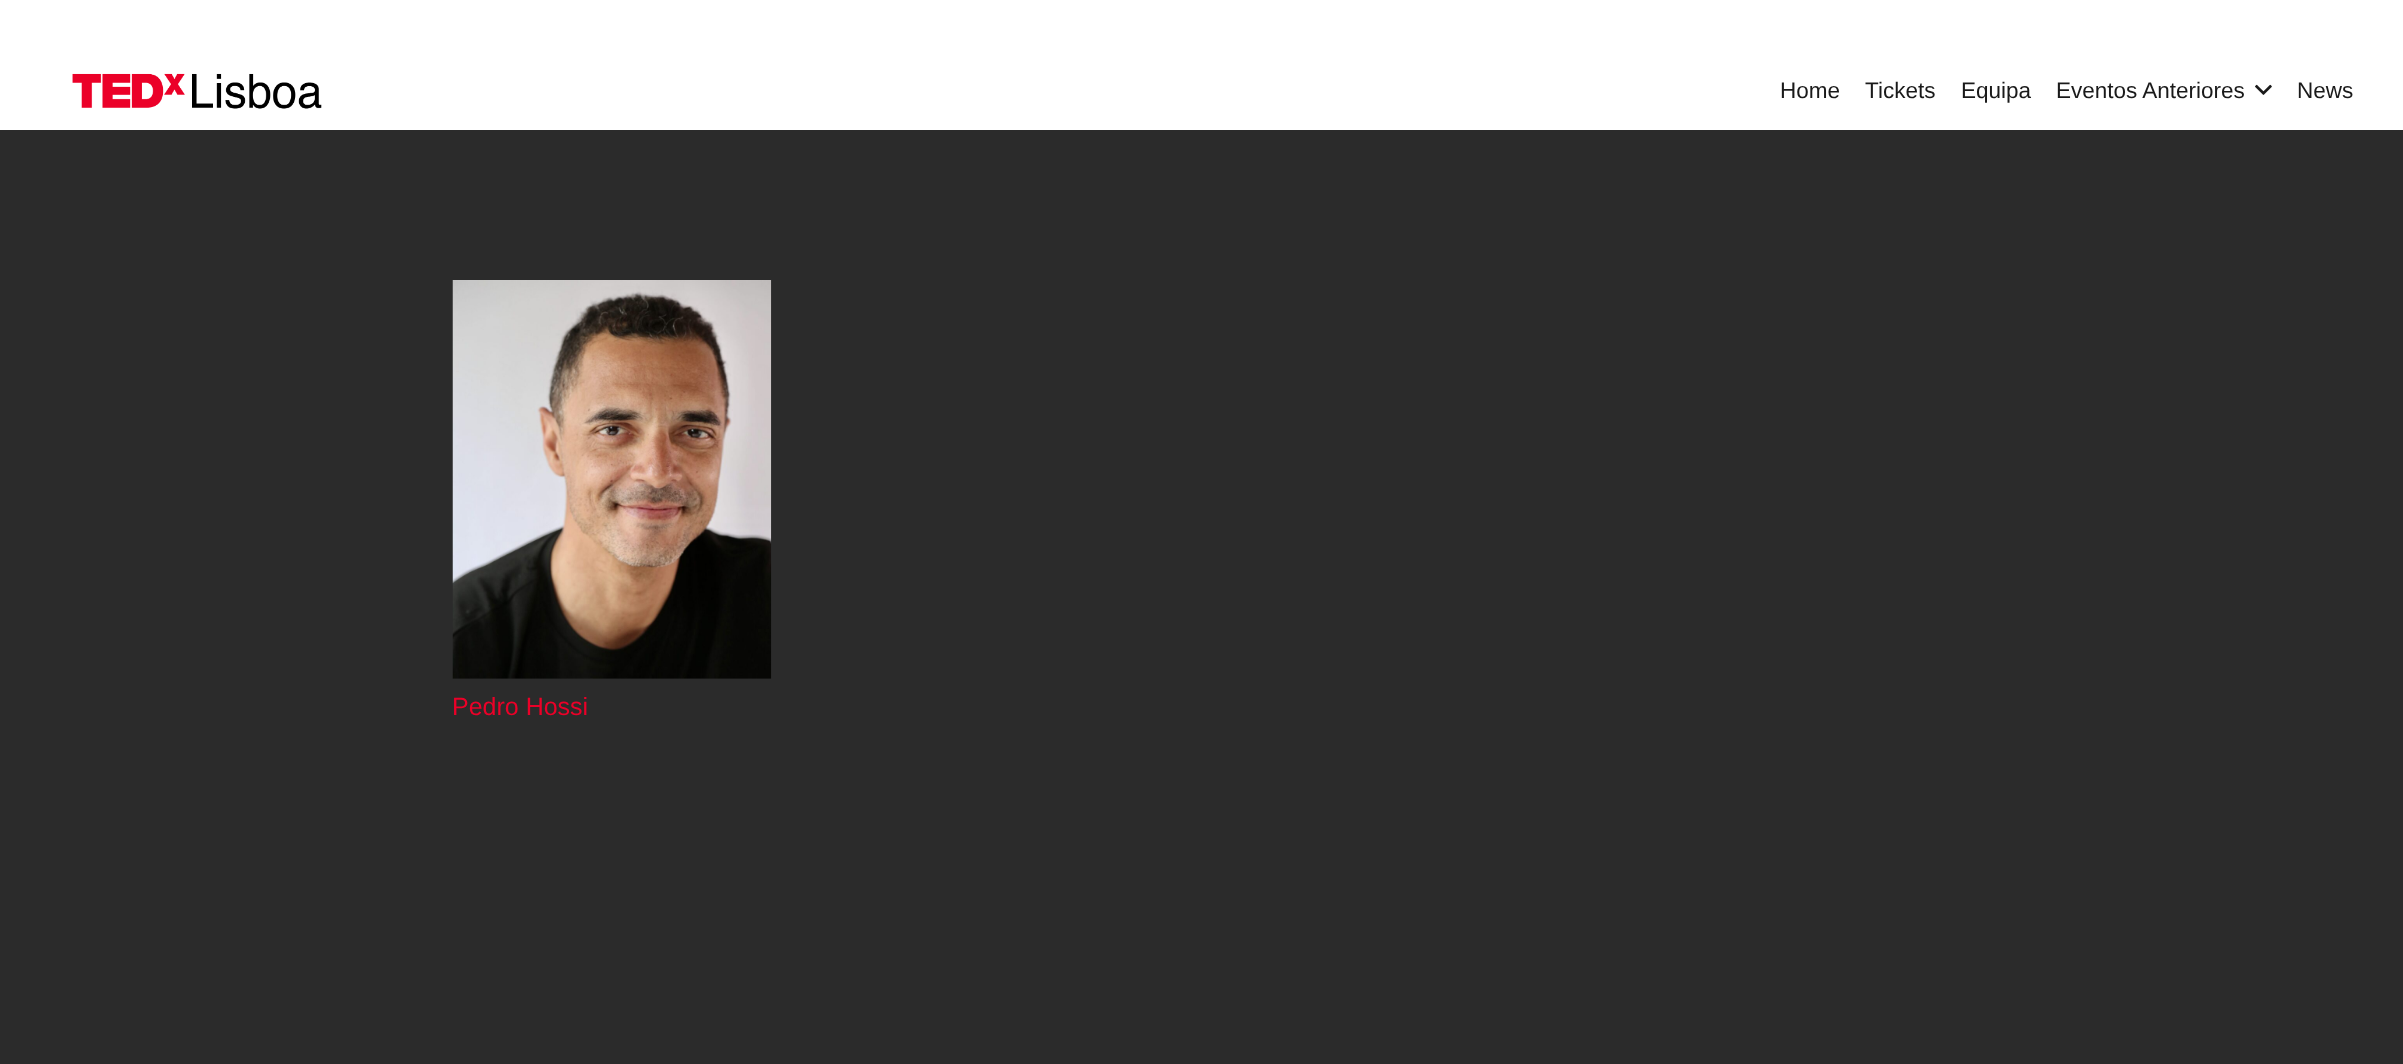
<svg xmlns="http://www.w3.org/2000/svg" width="2403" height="1064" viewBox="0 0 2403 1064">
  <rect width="100%" height="100%" fill="rgb(43,43,43)"/>
  <rect x="0" y="0" width="2403" height="130" fill="rgb(255,255,255)"/>
  <image x="72" y="73" width="250" height="36" href="pic1.png"/>
  <g font-family="Liberation Sans" font-size="22.5" fill="rgb(26,26,26)">
    <text x="1780" y="98">Home</text>
    <text x="1865" y="98">Tickets</text>
    <text x="1961" y="98">Equipa</text>
    <text x="2056" y="98">Eventos Anteriores</text>
  </g>
  <image x="2255" y="84" width="17" height="11" href="pic2.png"/>
  <text x="2297" y="98" font-family="Liberation Sans" font-size="22.5" fill="rgb(26,26,26)">News</text>
  <image x="452" y="280" width="320" height="399" href="pic3.png"/>
  <text x="452" y="715" font-family="Liberation Sans" font-size="25" fill="rgb(235,0,40)">Pedro Hossi</text>
</svg>
